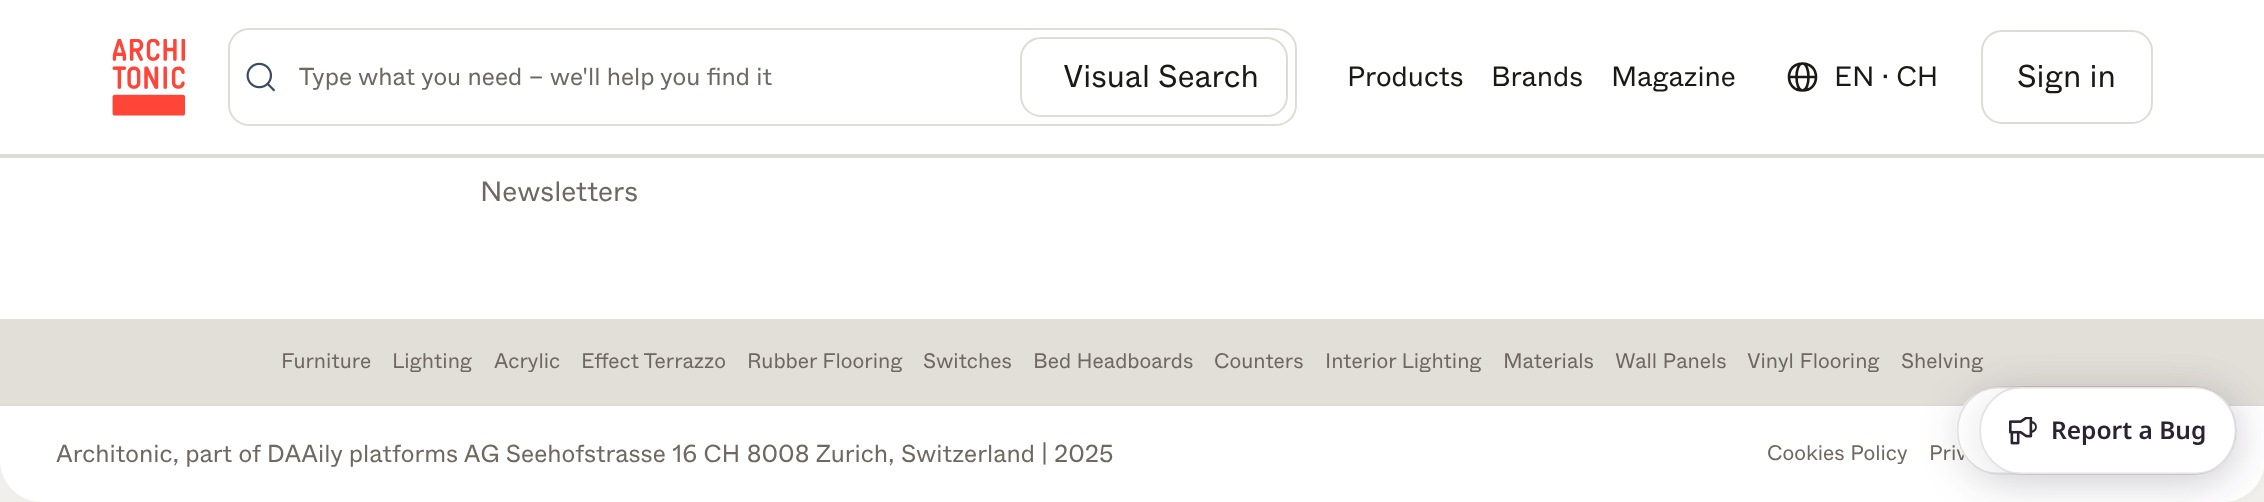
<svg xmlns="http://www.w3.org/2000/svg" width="2264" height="502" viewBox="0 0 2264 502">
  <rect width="100%" height="100%" fill="rgb(241,239,236)"/>
  <rect x="0" y="0" width="2264" height="154" fill="rgb(255,255,255)"/>
  <rect x="0" y="154" width="2264" height="4" fill="rgb(223,219,214)"/>
  <image x="112" y="39" width="74" height="77" href="pic1.png"/>
  <rect x="229" y="29" width="1067" height="96" rx="20" fill="none" stroke="rgb(223,219,214)" stroke-width="2"/>
  <image x="246" y="62" width="29" height="30" href="pic2.png"/>
  <text x="299" y="85" font-family="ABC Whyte" font-size="24.5" fill="rgb(110,104,97)">Type what you need – we'll help you find it</text>
  <rect x="1021" y="38" width="266" height="78" rx="20" fill="none" stroke="rgb(223,219,214)" stroke-width="2"/>
  <text x="1063" y="87" font-family="ABC Whyte" font-size="31.5" fill="rgb(27,25,21)">Visual Search</text>
  <g font-family="ABC Whyte" font-size="28" fill="rgb(27,25,21)">
    <text x="1347" y="86">Products</text>
    <text x="1491" y="86">Brands</text>
    <text x="1611" y="86">Magazine</text>
  </g>
  <path d="M1802.5 90.5C1820.5 90.5 1820.5 63.5 1802.5 63.5M1802.5 90.5C1784.5 90.5 1784.5 63.5 1802.5 63.5M1802.5 90.5C1794.5 90.5 1794.5 63.5 1802.5 63.5M1802.5 90.5C1810.5 90.5 1810.5 63.5 1802.5 63.5M1815.5 77H1789.5" fill="none" stroke="rgb(27,25,21)" stroke-width="2.6" stroke-linecap="square"/>
  <text x="1834" y="86" font-family="ABC Whyte" font-size="28" fill="rgb(27,25,21)">EN · CH</text>
  <rect x="1982" y="31" width="170" height="92" rx="20" fill="none" stroke="rgb(223,219,214)" stroke-width="2"/>
  <text x="2017" y="87" font-family="ABC Whyte" font-size="31.5" fill="rgb(27,25,21)">Sign in</text>
  <rect x="0" y="158" width="2264" height="161" fill="rgb(255,255,255)"/>
  <text x="480" y="201" font-family="ABC Whyte" font-size="28" fill="rgb(110,104,97)">Newsletters</text>
  <rect x="0" y="319" width="2264" height="85" fill="rgb(226,223,217)"/>
  <g font-family="ABC Whyte" font-size="21" fill="rgb(110,104,97)">
    <text x="281" y="368">Furniture</text>
    <text x="392" y="368">Lighting</text>
    <text x="494" y="368">Acrylic</text>
    <text x="581" y="368">Effect Terrazzo</text>
    <text x="747" y="368">Rubber Flooring</text>
    <text x="923" y="368">Switches</text>
    <text x="1033" y="368">Bed Headboards</text>
    <text x="1214" y="368">Counters</text>
    <text x="1325" y="368">Interior Lighting</text>
    <text x="1503" y="368">Materials</text>
    <text x="1615" y="368">Wall Panels</text>
    <text x="1747" y="368">Vinyl Flooring</text>
    <text x="1901" y="368">Shelving</text>
  </g>
  <path d="M0 404H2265V460C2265 483 2246 502 2223 502H42C19 502 0 483 0 460Z" fill="rgb(255,255,255)"/>
  <rect x="0" y="404" width="2264" height="2" fill="rgb(223,219,214)"/>
  <text x="56" y="462" font-family="ABC Whyte" font-size="24.5" fill="rgb(110,104,97)">Architonic, part of DAAily platforms AG Seehofstrasse 16 CH 8008 Zurich, Switzerland | 2025</text>
  <g font-family="ABC Whyte" font-size="21" fill="rgb(110,104,97)">
    <text x="1767" y="460">Cookies Policy</text>
    <text x="1929" y="460">Priv</text>
  </g>
  <rect x="1957" y="394" width="280" height="87" rx="42" fill="rgba(43,34,51,0.12)" filter="blur(21px)"/>
  <path d="M1998 387H2195C2218 387 2236 406 2236 430C2236 455 2218 474 2195 474H1998C1975 474 1956 455 1956 430C1956 406 1975 387 1998 387Z" fill="rgb(255,255,255)"/>
  <path d="M1998 387.5H2195C2217.5 387.5 2235.5 407 2235.5 430.5C2235.5 454 2217.5 473.5 2195 473.5H1998C1975.5 473.5 1957.5 454 1957.5 430.5C1957.5 407 1975.5 387.5 1998 387.5Z" fill="none" stroke="rgba(41,35,47,0.13)" stroke-width="1.8"/>
  <rect x="1979" y="394" width="258" height="87" rx="42" fill="rgba(43,34,51,0.12)" filter="blur(21px)"/>
  <path d="M2021 387H2195C2218 387 2236 406 2236 430C2236 455 2218 474 2195 474H2021C1998 474 1979 455 1979 430C1979 406 1998 387 2021 387Z" fill="rgb(255,255,255)"/>
  <path d="M2021 387.5H2195C2217.5 387.5 2235.5 407 2235.5 430.5C2235.5 454 2217.5 473.5 2195 473.5H2021C1998.5 473.5 1980 454 1980 430.5C1980 407 1998.5 387.5 2021 387.5Z" fill="none" stroke="rgba(41,35,47,0.13)" stroke-width="1.8"/>
  <image x="2009" y="417" width="28" height="28" href="pic3.png"/>
  <text x="2051" y="439" font-family="Noto Sans" font-size="24.5" font-weight="600" fill="rgb(43,34,51)">Report a Bug</text>
</svg>
